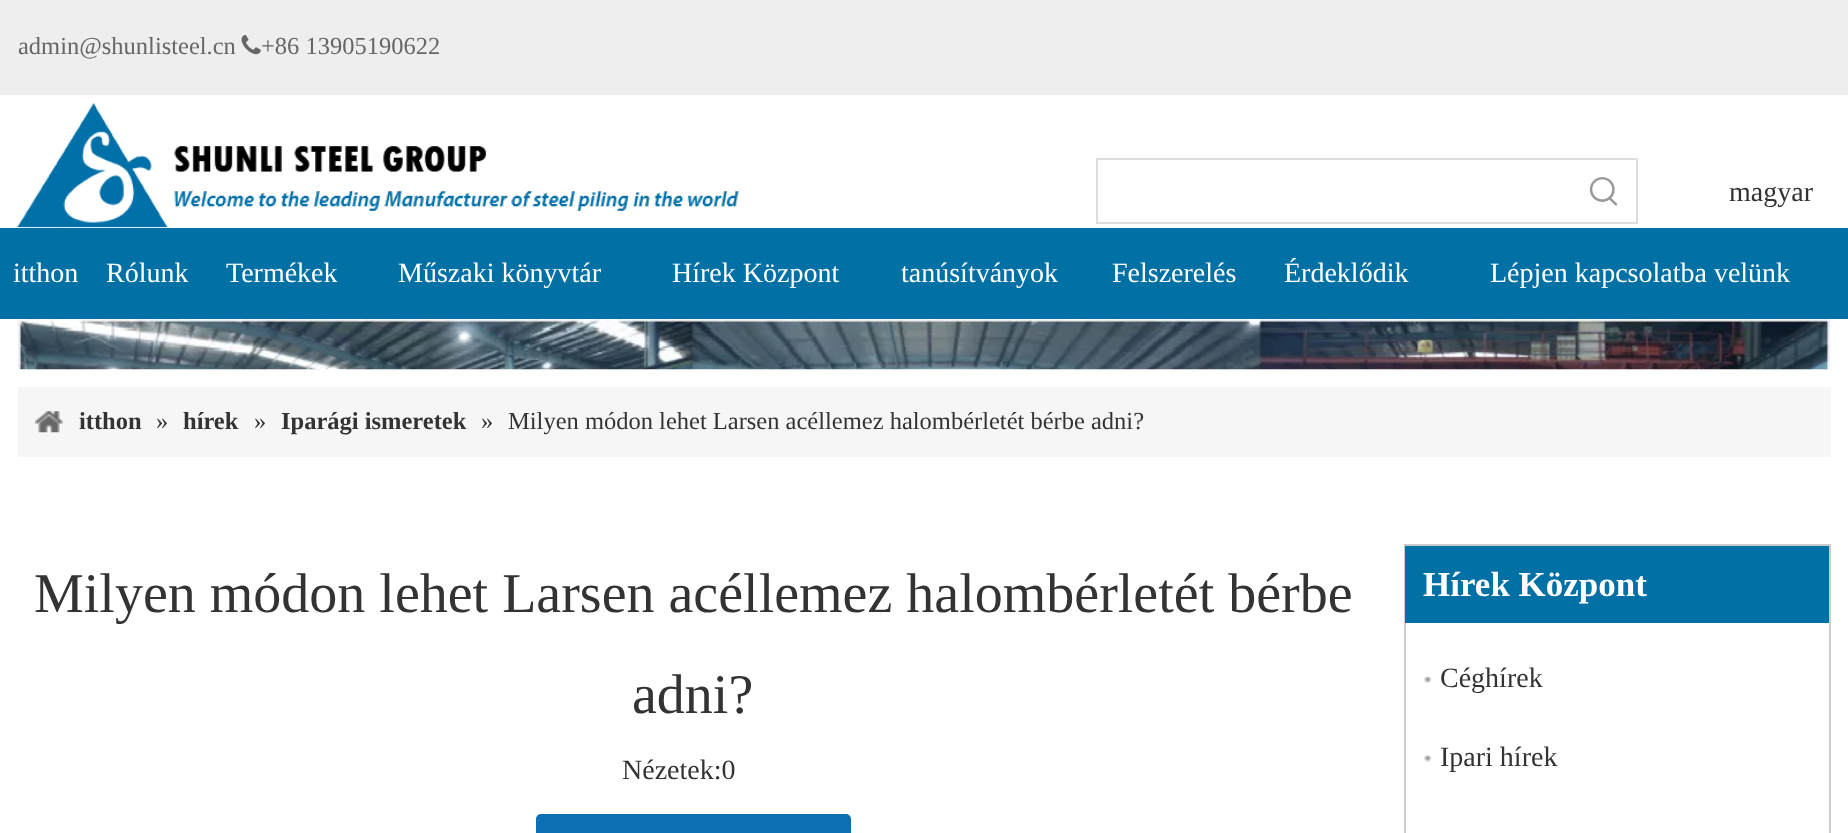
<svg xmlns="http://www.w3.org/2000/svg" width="1848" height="833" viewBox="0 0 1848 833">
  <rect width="100%" height="100%" fill="rgb(255,255,255)"/>
  <rect x="0" y="0" width="1848" height="95" fill="rgb(238,238,238)"/>
  <text x="18" y="54" font-family="Liberation Serif" font-size="24.5" fill="rgb(102,102,102)">admin@shunlisteel.cn</text>
  <image x="241" y="35" width="20" height="20" href="pic1.png"/>
  <text x="261" y="54" font-family="Liberation Serif" font-size="24.5" fill="rgb(102,102,102)">+86 13905190622</text>
  <image x="17" y="103" width="722" height="125" href="pic2.png"/>
  <rect x="1097" y="159" width="540" height="64" fill="none" stroke="rgb(221,221,221)" stroke-width="2"/>
  <image x="1589" y="177" width="29" height="29" href="pic3.png"/>
  <text x="1729" y="201" font-family="Liberation Serif" font-size="28" fill="rgb(51,51,51)">magyar</text>
  <rect x="0" y="228" width="1848" height="91" fill="rgb(0,112,165)"/>
  <g font-family="Liberation Serif" font-size="28" fill="rgb(255,255,255)">
    <text x="13" y="282">itthon</text>
    <text x="106" y="282">Rólunk</text>
    <text x="226" y="282">Termékek</text>
    <text x="398" y="282">Műszaki könyvtár</text>
    <text x="672" y="282">Hírek Központ</text>
    <text x="901" y="282">tanúsítványok</text>
    <text x="1112" y="282">Felszerelés</text>
    <text x="1284" y="282">Érdeklődik</text>
    <text x="1490" y="282">Lépjen kapcsolatba velünk</text>
  </g>
  <image x="17" y="319" width="1814" height="51" href="pic4.png"/>
  <rect x="18" y="387" width="1813" height="70" fill="rgb(246,246,246)"/>
  <image x="35" y="411" width="28" height="22" href="pic5.png"/>
  <text x="79" y="429" font-family="Liberation Serif" font-size="24.5" font-weight="bold" fill="rgb(51,51,51)">itthon</text>
  <text x="156" y="429" font-family="Liberation Serif" font-size="24.5" fill="rgb(51,51,51)">»</text>
  <text x="183" y="429" font-family="Liberation Serif" font-size="24.5" font-weight="bold" fill="rgb(51,51,51)">hírek</text>
  <text x="254" y="429" font-family="Liberation Serif" font-size="24.5" fill="rgb(51,51,51)">»</text>
  <text x="281" y="429" font-family="Liberation Serif" font-size="24.5" font-weight="bold" fill="rgb(51,51,51)">Iparági ismeretek</text>
  <g font-family="Liberation Serif" font-size="24.5" fill="rgb(51,51,51)">
    <text x="481" y="429">»</text>
    <text x="508" y="429">Milyen módon lehet Larsen acéllemez halombérletét bérbe adni?</text>
  </g>
  <g font-family="Liberation Serif" font-size="56" fill="rgb(51,51,51)">
    <text x="34" y="612">Milyen módon lehet Larsen acéllemez halombérletét bérbe</text>
    <text x="632" y="713">adni?</text>
  </g>
  <text x="622" y="779" font-family="Liberation Serif" font-size="28" fill="rgb(51,51,51)">Nézetek:0</text>
  <rect x="536" y="814" width="315" height="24" rx="5" fill="rgb(12,111,179)"/>
  <rect x="1405" y="545" width="425" height="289" fill="none" stroke="rgb(204,204,204)" stroke-width="2"/>
  <rect x="1405" y="546" width="424" height="77" fill="rgb(0,112,165)"/>
  <text x="1423" y="596" font-family="Liberation Serif" font-size="35" font-weight="bold" fill="rgb(255,255,255)">Hírek Központ</text>
  <image x="1424" y="675" width="8" height="8" href="pic6.png"/>
  <text x="1440" y="687" font-family="Liberation Serif" font-size="28" fill="rgb(51,51,51)">Céghírek</text>
  <image x="1424" y="754" width="8" height="8" href="pic7.png"/>
  <text x="1440" y="766" font-family="Liberation Serif" font-size="28" fill="rgb(51,51,51)">Ipari hírek</text>
</svg>
